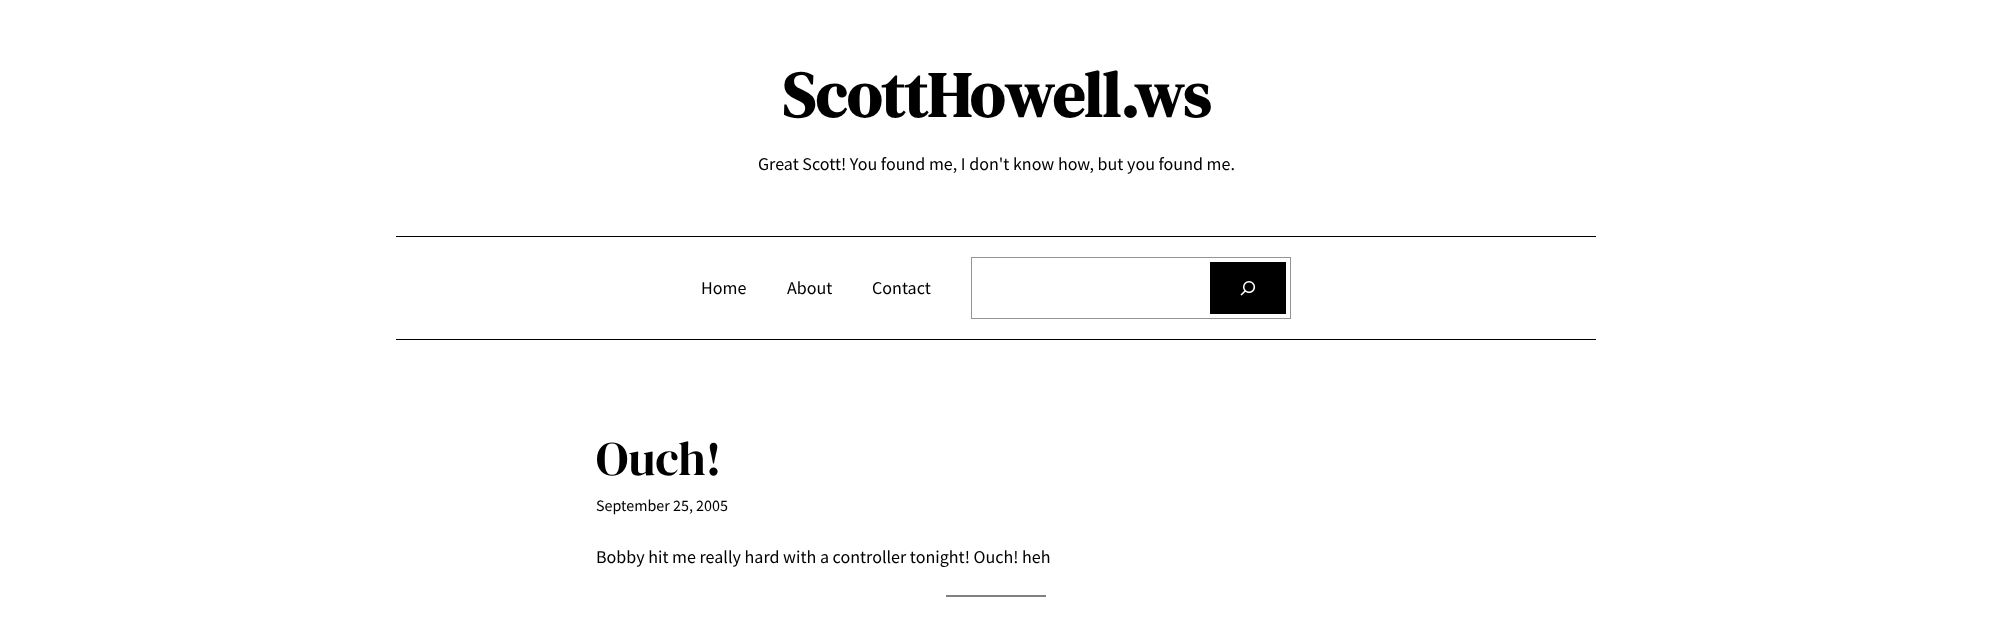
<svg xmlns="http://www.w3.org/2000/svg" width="1992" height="635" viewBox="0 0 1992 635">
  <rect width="100%" height="100%" fill="rgb(255,255,255)"/>
  <text x="782" y="117" font-family="DM Serif Display" font-size="64" font-weight="bold" fill="rgb(0,0,0)">ScottHowell.ws</text>
  <text x="758" y="170" font-family="Source Sans Pro" font-size="18" fill="rgb(0,0,0)">Great Scott! You found me, I don't know how, but you found me.</text>
  <rect x="396" y="236" width="1200" height="1" fill="rgb(0,0,0)"/>
  <rect x="396" y="339" width="1200" height="1" fill="rgb(0,0,0)"/>
  <g font-family="Source Sans Pro" font-size="18" fill="rgb(0,0,0)">
    <text x="701" y="294">Home</text>
    <text x="787" y="294">About</text>
    <text x="872" y="294">Contact</text>
  </g>
  <rect x="971.5" y="257.5" width="319" height="61" fill="none" stroke="rgb(148,148,148)"/>
  <rect x="1210" y="262" width="76" height="52" fill="rgb(0,0,0)"/>
  <image x="1240" y="281" width="16" height="15" href="pic1.png"/>
  <text x="596" y="475" font-family="DM Serif Display" font-size="48" fill="rgb(0,0,0)">Ouch!</text>
  <text x="596" y="511" font-family="Source Sans Pro" font-size="16" fill="rgb(0,0,0)">September 25, 2005</text>
  <text x="596" y="563" font-family="Source Sans Pro" font-size="18" fill="rgb(0,0,0)">Bobby hit me really hard with a controller tonight! Ouch! heh</text>
  <rect x="946" y="595" width="100" height="2" fill="rgb(128,128,128)"/>
</svg>
